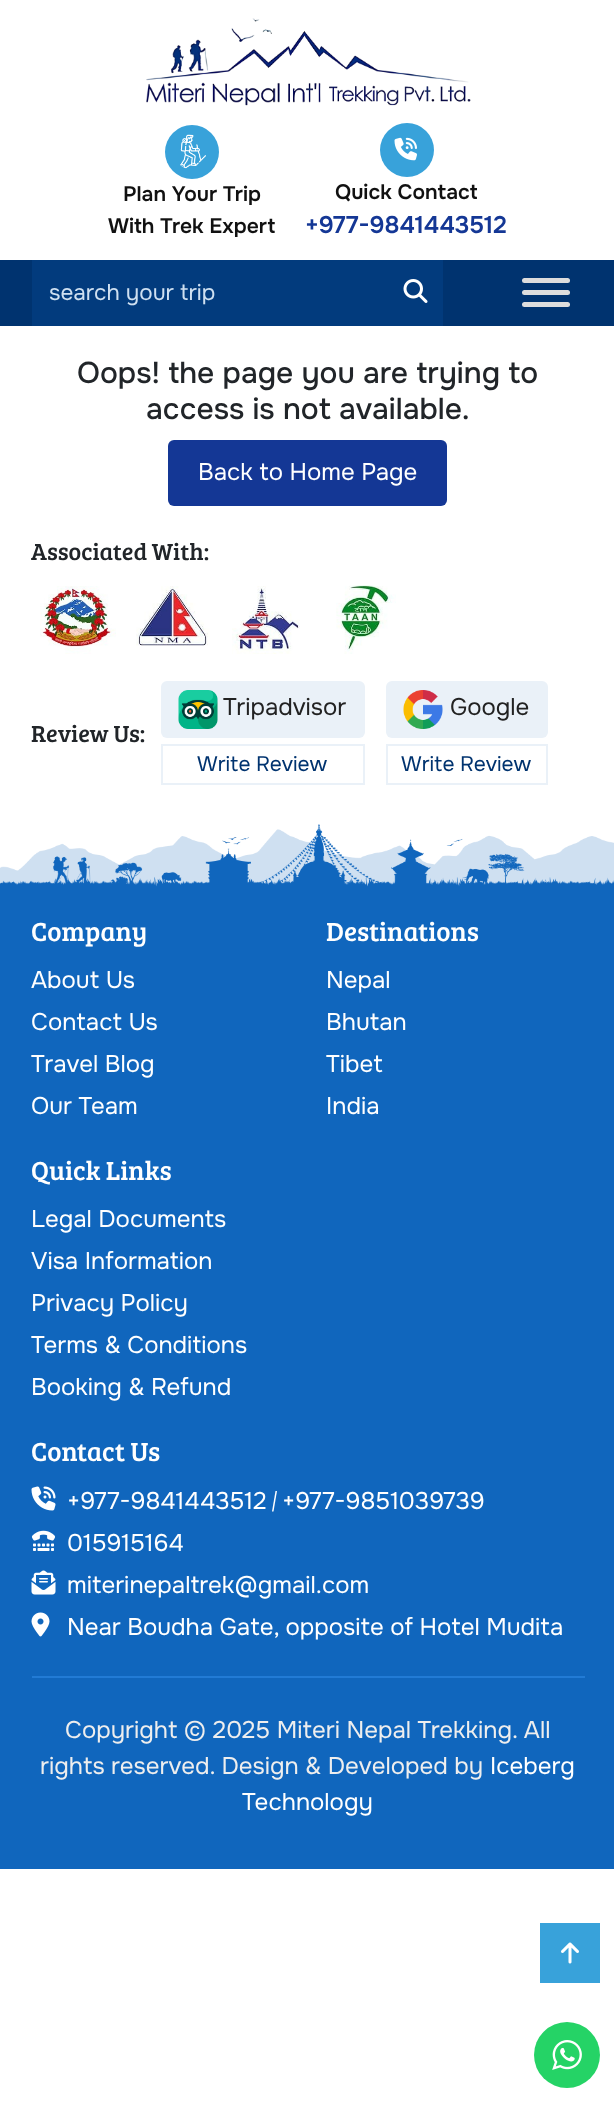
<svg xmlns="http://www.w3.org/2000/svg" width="614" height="2103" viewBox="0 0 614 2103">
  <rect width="100%" height="100%" fill="rgb(255,255,255)"/>
  <image x="146" y="18" width="325" height="88" href="pic1.png"/>
  <circle cx="192" cy="152" r="27" fill="rgb(56,162,218)"/>
  <image x="180" y="134" width="26" height="35" href="pic2.png"/>
  <g font-family="Onest" font-size="21" font-weight="600" fill="rgb(17,17,17)">
    <text x="123" y="201">Plan Your Trip</text>
    <text x="108" y="233">With Trek Expert</text>
  </g>
  <circle cx="407" cy="150" r="27" fill="rgb(56,162,218)"/>
  <image x="394" y="137" width="23" height="24" href="pic3.png"/>
  <text x="335" y="199" font-family="Onest" font-size="21" font-weight="600" fill="rgb(17,17,17)">Quick Contact</text>
  <text x="305" y="233" font-family="Onest" font-size="24" font-weight="600" fill="rgb(20,55,149)">+977-9841443512</text>
  <rect x="0" y="260" width="614" height="66" fill="rgb(0,51,111)"/>
  <rect x="32" y="260" width="411" height="66" fill="rgb(2,59,125)"/>
  <text x="49" y="300" font-family="Onest" font-size="22.5" fill="rgb(207,224,241)">search your trip</text>
  <image x="403" y="279" width="25" height="24" href="pic4.png"/>
  <rect x="522" y="278" width="48" height="5" rx="2.5" fill="rgb(221,221,221)"/>
  <rect x="522" y="290" width="48" height="5" rx="2.5" fill="rgb(221,221,221)"/>
  <rect x="522" y="302" width="48" height="5" rx="2.5" fill="rgb(221,221,221)"/>
  <g font-family="Onest" font-size="30" font-weight="500" fill="rgb(33,37,41)">
    <text x="77" y="383">Oops! the page you are trying to</text>
    <text x="146" y="419">access is not available.</text>
  </g>
  <rect x="168" y="440" width="279" height="66" rx="6" fill="rgb(20,55,149)"/>
  <text x="198" y="480" font-family="Onest" font-size="24" fill="rgb(255,255,255)">Back to Home Page</text>
  <text x="31" y="560" font-family="Bree Serif" font-size="24" fill="rgb(33,37,41)">Associated With:</text>
  <image x="40" y="586" width="76" height="68" href="pic5.png"/>
  <image x="136" y="586" width="74" height="60" href="pic6.png"/>
  <image x="232" y="586" width="68" height="68" href="pic7.png"/>
  <image x="336" y="585" width="60" height="69" href="pic8.png"/>
  <text x="31" y="742" font-family="Bree Serif" font-size="24" fill="rgb(33,37,41)">Review Us:</text>
  <rect x="161" y="681" width="204" height="57" rx="6" fill="rgb(234,241,248)"/>
  <image x="178" y="690" width="40" height="39" href="pic9.png"/>
  <text x="223" y="715" font-family="Onest" font-size="24" fill="rgb(34,34,34)">Tripadvisor</text>
  <rect x="162" y="745" width="202" height="39" fill="none" stroke="rgb(234,241,248)" stroke-width="2"/>
  <text x="197" y="771" font-family="Onest" font-size="21" fill="rgb(0,51,111)">Write Review</text>
  <rect x="386" y="681" width="162" height="57" rx="6" fill="rgb(234,241,248)"/>
  <image x="403" y="690" width="40" height="39" href="pic10.png"/>
  <text x="450" y="715" font-family="Onest" font-size="24" fill="rgb(34,34,34)">Google</text>
  <rect x="387" y="745" width="160" height="39" fill="none" stroke="rgb(234,241,248)" stroke-width="2"/>
  <text x="401" y="771" font-family="Onest" font-size="21" fill="rgb(0,51,111)">Write Review</text>
  <image x="0" y="824" width="614" height="67" href="pic11.png"/>
  <rect x="0" y="891" width="614" height="978" fill="rgb(16,102,189)"/>
  <text x="31" y="941" font-family="Bree Serif" font-size="27" fill="rgb(255,255,255)">Company</text>
  <g font-family="Onest" font-size="24" fill="rgb(255,255,255)">
    <text>
      <tspan x="31" y="988">About Us</tspan>
      <tspan x="31" y="1030">Contact Us</tspan>
      <tspan x="31" y="1072">Travel Blog</tspan>
      <tspan x="31" y="1114">Our Team</tspan>
    </text>
  </g>
  <text x="326" y="941" font-family="Bree Serif" font-size="27" fill="rgb(255,255,255)">Destinations</text>
  <g font-family="Onest" font-size="24" fill="rgb(255,255,255)">
    <text>
      <tspan x="326" y="988">Nepal</tspan>
      <tspan x="326" y="1030">Bhutan</tspan>
      <tspan x="326" y="1072">Tibet</tspan>
      <tspan x="326" y="1114">India</tspan>
    </text>
  </g>
  <text x="31" y="1180" font-family="Bree Serif" font-size="27" fill="rgb(255,255,255)">Quick Links</text>
  <g font-family="Onest" font-size="24" fill="rgb(255,255,255)">
    <text>
      <tspan x="31" y="1227">Legal Documents</tspan>
      <tspan x="31" y="1269">Visa Information</tspan>
      <tspan x="31" y="1311">Privacy Policy</tspan>
      <tspan x="31" y="1353">Terms &amp; Conditions</tspan>
      <tspan x="31" y="1395">Booking &amp; Refund</tspan>
    </text>
  </g>
  <text x="31" y="1461" font-family="Bree Serif" font-size="27" fill="rgb(255,255,255)">Contact Us</text>
  <image x="31" y="1486" width="25" height="25" href="pic12.png"/>
  <text x="67" y="1509" font-family="Onest" font-size="24" fill="rgb(255,255,255)">+977-9841443512</text>
  <path d="M275.5 1491H277L273.5 1511.5H272Z" fill="rgb(255,255,255)"/>
  <text x="282" y="1509" font-family="Onest" font-size="24" fill="rgb(255,255,255)">+977-9851039739</text>
  <image x="31" y="1530" width="25" height="21" href="pic13.png"/>
  <text x="67" y="1551" font-family="Onest" font-size="24" fill="rgb(255,255,255)">015915164</text>
  <image x="31" y="1570" width="25" height="25" href="pic14.png"/>
  <text x="67" y="1593" font-family="Onest" font-size="24" fill="rgb(255,255,255)">miterinepaltrek@gmail.com</text>
  <image x="31" y="1612" width="19" height="25" href="pic15.png"/>
  <text x="67" y="1635" font-family="Onest" font-size="24" fill="rgb(255,255,255)">Near Boudha Gate, opposite of Hotel Mudita</text>
  <rect x="32" y="1676" width="553" height="2" fill="rgb(34,123,213)"/>
  <g font-family="Onest" font-size="24" fill="rgb(238,238,238)">
    <text x="65" y="1738">Copyright © 2025 Miteri Nepal Trekking. All</text>
    <text x="40" y="1774">rights reserved. Design &amp; Developed by</text>
  </g>
  <g font-family="Onest" font-size="24" fill="rgb(255,255,255)">
    <text x="490" y="1774">Iceberg</text>
    <text x="242" y="1810">Technology</text>
  </g>
  <rect x="540" y="1923" width="60" height="60" fill="rgb(56,162,218)"/>
  <image x="561" y="1942" width="18" height="22" href="pic16.png"/>
  <circle cx="567" cy="2055" r="33" fill="rgb(37,211,102)"/>
  <image x="552" y="2040" width="30" height="30" href="pic17.png"/>
</svg>
